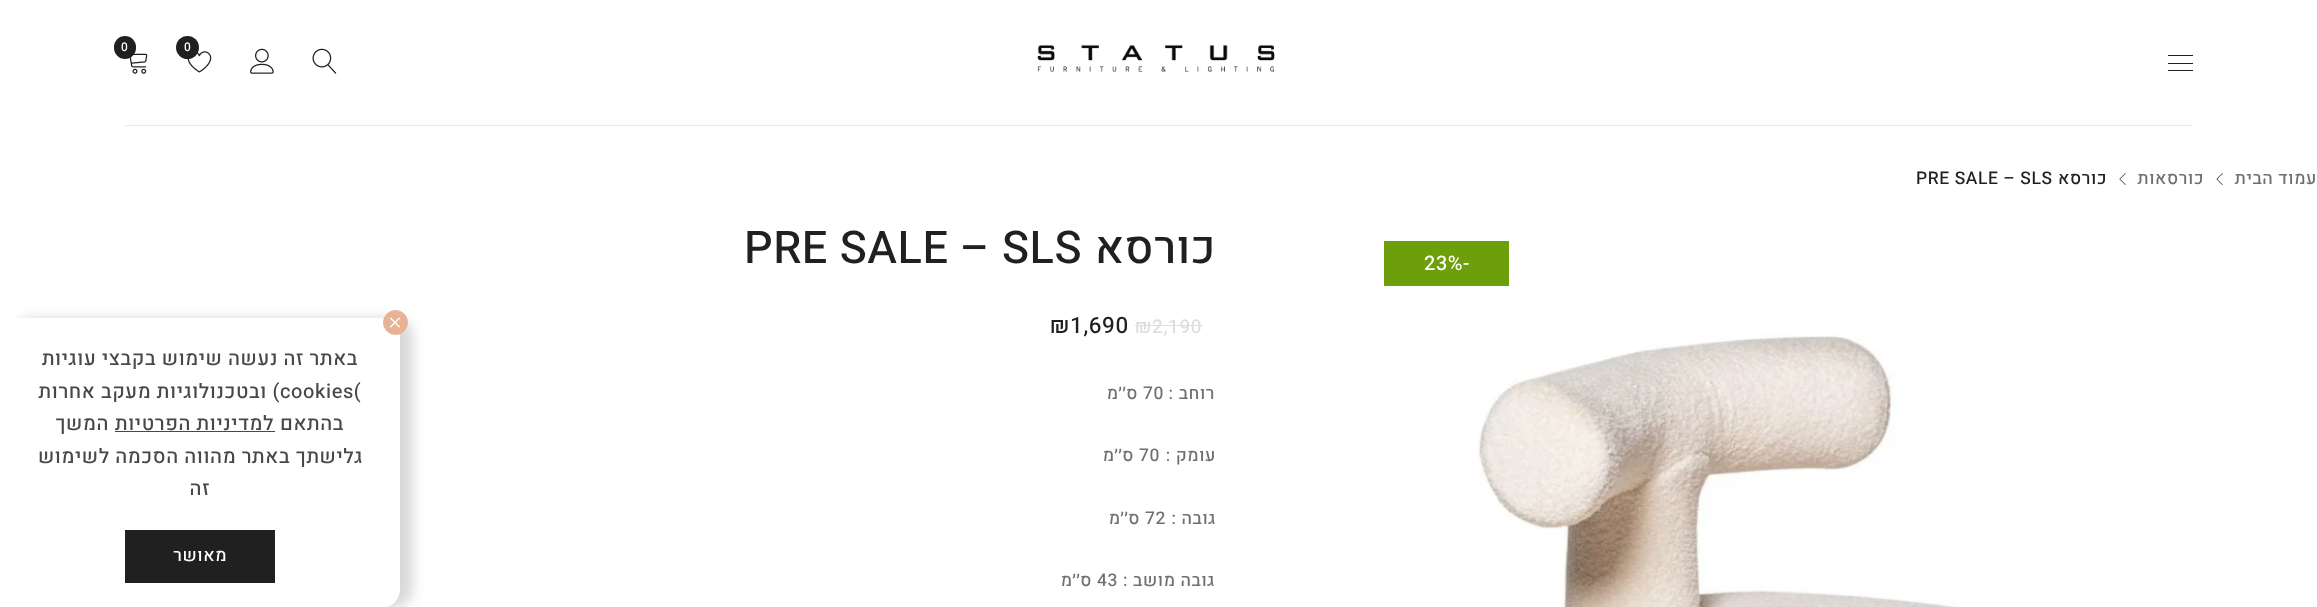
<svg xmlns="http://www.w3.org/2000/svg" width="2317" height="607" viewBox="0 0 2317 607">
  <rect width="100%" height="100%" fill="rgb(255,255,255)"/>
  <rect x="2168" y="55" width="25" height="1" fill="rgb(32,32,32)"/>
  <rect x="2168" y="63" width="25" height="1" fill="rgb(32,32,32)"/>
  <rect x="2168" y="70" width="25" height="1" fill="rgb(32,32,32)"/>
  <image x="1037" y="44" width="238" height="28" href="pic1.png"/>
  <image x="187" y="51" width="25" height="22" href="pic2.png"/>
  <circle cx="187.5" cy="47.5" r="11.5" fill="rgb(32,32,32)"/>
  <text x="184" y="51" font-family="Heebo" font-size="12" font-weight="500" fill="rgb(255,255,255)">0</text>
  <image x="129" y="53" width="19" height="21" href="pic3.png"/>
  <rect x="114" y="36" width="22" height="23" rx="11" fill="rgb(32,32,32)"/>
  <text x="121" y="51" font-family="Heebo" font-size="12" font-weight="500" letter-spacing="0.6" fill="rgb(255,255,255)">0</text>
  <image x="312" y="48" width="25" height="26" href="pic4.png"/>
  <image x="250" y="48" width="24" height="26" href="pic5.png"/>
  <rect x="125" y="125" width="2068" height="1" fill="rgb(233,233,233)"/>
  <text x="2317" y="184" font-family="Heebo" font-size="17.5" font-weight="500" letter-spacing="0.6" direction="rtl" fill="rgb(112,112,112)">עמוד הבית</text>
  <image x="2216" y="173" width="7" height="12" href="pic6.png"/>
  <text x="2204" y="184" font-family="Heebo" font-size="17.5" font-weight="500" letter-spacing="0.6" direction="rtl" fill="rgb(112,112,112)">כורסאות</text>
  <image x="2119" y="173" width="7" height="12" href="pic7.png"/>
  <text x="2107" y="184" font-family="Heebo" font-size="17.5" font-weight="500" letter-spacing="0.6" direction="rtl" fill="rgb(32,32,32)">כורסא</text>
  <text x="1916" y="184" font-family="Heebo" font-size="17.5" font-weight="500" letter-spacing="0.6" fill="rgb(32,32,32)">PRE SALE – SLS</text>
  <rect x="1384" y="241" width="125" height="45" fill="rgb(109,158,11)"/>
  <text x="1424" y="270" font-family="Heebo" font-size="20" font-weight="500" letter-spacing="0.6" fill="rgb(255,255,255)">23%-</text>
  <image x="1477" y="334" width="478" height="273" href="pic8.png"/>
  <text x="1216" y="263" font-family="Heebo" font-size="45" font-weight="500" letter-spacing="0.6" direction="rtl" fill="rgb(32,32,32)">כורסא</text>
  <text x="744" y="263" font-family="Heebo" font-size="45" font-weight="500" letter-spacing="0.6" fill="rgb(32,32,32)">PRE SALE – SLS</text>
  <text x="1135" y="333" font-family="Heebo" font-size="19" font-weight="500" letter-spacing="0.6" fill="rgb(222,222,222)">₪2,190</text>
  <rect x="1135" y="325" width="68" height="1" fill="rgb(222,222,222)"/>
  <text x="1050" y="333" font-family="Heebo" font-size="22.5" font-weight="500" letter-spacing="0.6" fill="rgb(32,32,32)">₪1,690</text>
  <text x="1215" y="399" font-family="Heebo" font-size="17.5" font-weight="500" letter-spacing="0.6" direction="rtl" fill="rgb(112,112,112)">רוחב :</text>
  <text x="1143" y="399" font-family="Heebo" font-size="17.5" font-weight="500" letter-spacing="0.6" fill="rgb(112,112,112)">70</text>
  <g font-family="Heebo" font-size="17.5" font-weight="500" letter-spacing="0.6" direction="rtl" fill="rgb(112,112,112)">
    <text x="1138" y="399">ס׳׳מ</text>
    <text x="1216" y="461">עומק :</text>
  </g>
  <text x="1139" y="461" font-family="Heebo" font-size="17.5" font-weight="500" letter-spacing="0.6" fill="rgb(112,112,112)">70</text>
  <g font-family="Heebo" font-size="17.5" font-weight="500" letter-spacing="0.6" direction="rtl" fill="rgb(112,112,112)">
    <text x="1134" y="461">ס׳׳מ</text>
    <text x="1216" y="524">גובה :</text>
  </g>
  <text x="1145" y="524" font-family="Heebo" font-size="17.5" font-weight="500" letter-spacing="0.6" fill="rgb(112,112,112)">72</text>
  <g font-family="Heebo" font-size="17.5" font-weight="500" letter-spacing="0.6" direction="rtl" fill="rgb(112,112,112)">
    <text x="1140" y="524">ס׳׳מ</text>
    <text x="1215" y="586">גובה מושב :</text>
  </g>
  <text x="1097" y="586" font-family="Heebo" font-size="17.5" font-weight="500" letter-spacing="0.6" fill="rgb(112,112,112)">43</text>
  <text x="1092" y="586" font-family="Heebo" font-size="17.5" font-weight="500" letter-spacing="0.6" direction="rtl" fill="rgb(112,112,112)">ס׳׳מ</text>
  <rect x="13" y="318" width="400" height="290" rx="19" fill="rgba(0,0,0,0.15)" filter="blur(6px)"/>
  <path d="M0 318H381C391.5 318 400 326.5 400 337V589C400 599.5 391.5 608 381 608H0Z" fill="rgb(255,255,255)"/>
  <circle cx="395.5" cy="322.5" r="12" fill="rgb(232,178,148)" stroke="rgb(232,178,148)"/>
  <image x="390" y="317" width="10" height="11" href="pic9.png"/>
  <text x="358" y="365" font-family="Heebo" font-size="20" font-weight="500" letter-spacing="0.6" direction="rtl" fill="rgb(72,72,72)">באתר זה נעשה שימוש בקבצי עוגיות</text>
  <text x="280" y="398" font-family="Heebo" font-size="20" font-weight="500" letter-spacing="0.6" fill="rgb(72,72,72)">cookies(</text>
  <g font-family="Heebo" font-size="20" font-weight="500" letter-spacing="0.6" direction="rtl" fill="rgb(72,72,72)">
    <text x="280" y="398">) ובטכנולוגיות מעקב אחרות</text>
    <text x="344" y="430">בהתאם</text>
    <text x="274" y="430">למדיניות הפרטיות</text>
  </g>
  <rect x="115" y="431" width="160" height="1" fill="rgb(72,72,72)"/>
  <g font-family="Heebo" font-size="20" font-weight="500" letter-spacing="0.6" direction="rtl" fill="rgb(72,72,72)">
    <text x="109" y="430">המשך</text>
    <text x="363" y="463">גלישתך באתר מהווה הסכמה לשימוש</text>
    <text x="210" y="495">זה</text>
  </g>
  <rect x="125" y="530" width="150" height="53" fill="rgb(32,32,32)"/>
  <text x="227" y="561" font-family="Heebo" font-size="17.5" font-weight="500" letter-spacing="0.6" direction="rtl" fill="rgb(255,255,255)">מאושר</text>
</svg>
